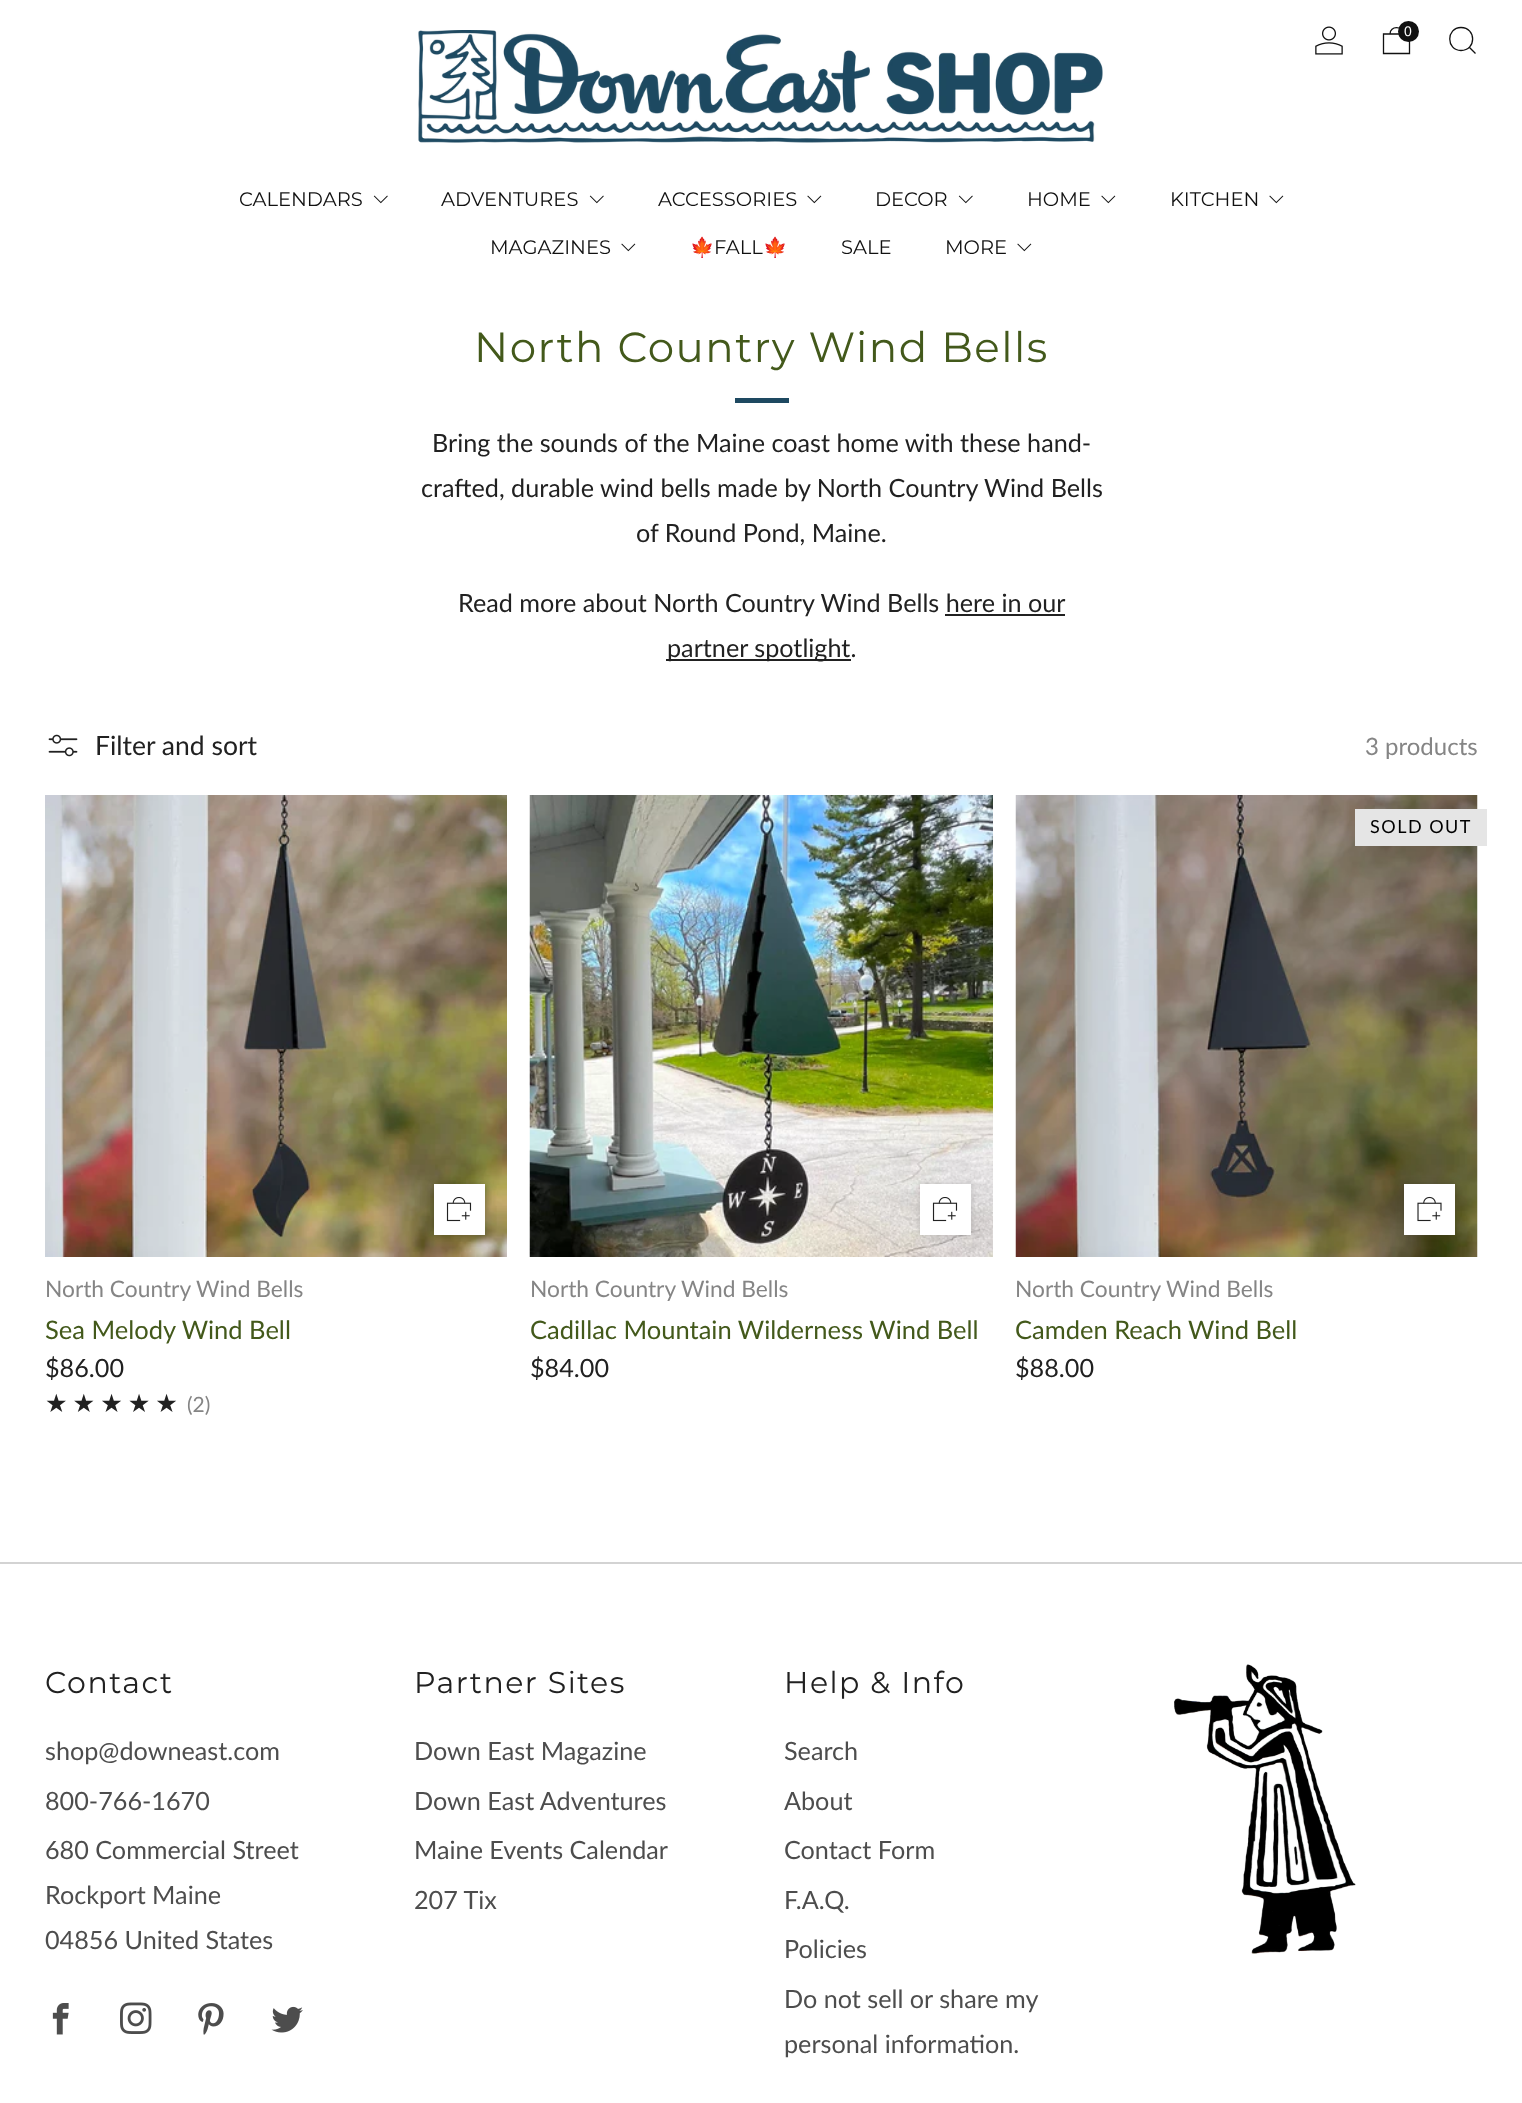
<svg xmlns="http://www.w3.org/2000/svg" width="1522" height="2103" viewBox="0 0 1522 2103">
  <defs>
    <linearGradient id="g1" gradientUnits="userSpaceOnUse" x1="45" y1="1404" x2="183" y2="1404"><stop offset="1" stop-color="rgb(33,33,33)"/><stop offset="1" stop-color="rgb(133,133,133)"/></linearGradient>
  </defs>
  <rect width="100%" height="100%" fill="rgb(255,255,255)"/>
  <image x="1315" y="26" width="28" height="29" href="pic1.png"/>
  <path d="M1383.5 34H1409.5V53.5H1383.5ZM1403 34C1403 25.5 1390 25.5 1390 34" fill="none" stroke="rgb(17,17,17)" stroke-width="1.3"/>
  <circle cx="1408.5" cy="31.5" r="10.5" fill="rgb(17,17,17)"/>
  <text x="1404" y="36" font-family="Liberation Sans" font-size="14" fill="rgb(255,255,255)">0</text>
  <path d="M1461 50.5C1476.5 50.5 1476.5 27.5 1461 27.5C1446 27.5 1446 50.5 1461 50.5ZM1469.5 47.5L1475.5 53.5" fill="none" stroke="rgb(17,17,17)" stroke-width="1.3"/>
  <text x="239" y="206" font-family="Montserrat" font-size="19.5" fill="rgb(17,17,17)">CALENDARS</text>
  <image x="373" y="195" width="15" height="9" href="pic2.png"/>
  <text x="441" y="206" font-family="Montserrat" font-size="19.5" fill="rgb(17,17,17)">ADVENTURES</text>
  <image x="589" y="195" width="15" height="9" href="pic2.png"/>
  <text x="658" y="206" font-family="Montserrat" font-size="19.5" fill="rgb(17,17,17)">ACCESSORIES</text>
  <image x="807" y="195" width="15" height="9" href="pic3.png"/>
  <text x="875" y="206" font-family="Montserrat" font-size="19.5" fill="rgb(17,17,17)">DECOR</text>
  <image x="958" y="195" width="15" height="9" href="pic2.png"/>
  <text x="1027" y="206" font-family="Montserrat" font-size="19.5" fill="rgb(17,17,17)">HOME</text>
  <image x="1101" y="195" width="15" height="9" href="pic3.png"/>
  <text x="1170" y="206" font-family="Montserrat" font-size="19.5" fill="rgb(17,17,17)">KITCHEN</text>
  <image x="1269" y="195" width="15" height="9" href="pic3.png"/>
  <text x="490" y="254" font-family="Montserrat" font-size="19.5" fill="rgb(17,17,17)">MAGAZINES</text>
  <image x="621" y="243" width="15" height="9" href="pic3.png"/>
  <text x="690" y="254" font-family="Noto Color Emoji" font-size="19.5" fill="rgb(17,17,17)">🍁</text>
  <text x="714" y="254" font-family="Montserrat" font-size="19.5" fill="rgb(17,17,17)">FALL</text>
  <text x="763" y="254" font-family="Noto Color Emoji" font-size="19.5" fill="rgb(17,17,17)">🍁</text>
  <g font-family="Montserrat" font-size="19.5" fill="rgb(17,17,17)">
    <text x="841" y="254">SALE</text>
    <text x="945" y="254">MORE</text>
  </g>
  <image x="1017" y="243" width="15" height="9" href="pic3.png"/>
  <image x="418" y="30" width="685" height="113" href="pic4.png"/>
  <text x="474" y="362" font-family="Montserrat" font-size="42" letter-spacing="1.5" fill="rgb(67,89,27)">North Country Wind Bells</text>
  <rect x="735" y="398" width="54" height="5" fill="rgb(30,73,97)"/>
  <g font-family="Lato" font-size="25.2" fill="rgb(33,33,33)">
    <text x="432" y="452">Bring the sounds of the Maine coast home with these hand-</text>
    <text x="421" y="497">crafted, durable wind bells made by North Country Wind Bells</text>
    <text x="636" y="542">of Round Pond, Maine.</text>
    <text x="458" y="612">Read more about North Country Wind Bells here in our</text>
  </g>
  <rect x="666" y="659" width="185" height="2" fill="rgb(33,33,33)"/>
  <text x="667" y="657" font-family="Lato" font-size="25.2" fill="rgb(33,33,33)">partner spotlight.</text>
  <rect x="945" y="614" width="120" height="2" fill="rgb(33,33,33)"/>
  <image x="48" y="734" width="30" height="23" href="pic5.png"/>
  <text x="95" y="755" font-family="Lato" font-size="26.5" fill="rgb(33,33,33)">Filter and sort</text>
  <text x="1365" y="755" font-family="Lato" font-size="24" fill="rgb(133,133,133)">3 products</text>
  <image x="45" y="795" width="462" height="462" href="pic6.png"/>
  <rect x="434" y="1184" width="51" height="51" fill="rgba(33,33,33,0.2)" filter="blur(3px)"/>
  <rect x="434" y="1184" width="51" height="51" fill="rgb(255,255,255)"/>
  <image x="446" y="1197" width="26" height="25" href="pic7.png"/>
  <text x="45" y="1297" font-family="Lato" font-size="22.75" fill="rgb(133,133,133)">North Country Wind Bells</text>
  <text x="45" y="1339" font-family="Lato" font-size="25.5" fill="rgb(67,89,27)">Sea Melody Wind Bell</text>
  <text x="45" y="1377" font-family="Lato" font-size="25.2" fill="rgb(33,33,33)">$86.00</text>
  <text x="45" y="1412" font-family="DejaVu Sans" font-size="25.2" letter-spacing="5" fill="url(#g1)">★★★★★</text>
  <text x="187" y="1412" font-family="Lato" font-size="21" fill="rgb(133,133,133)">(2)</text>
  <image x="529" y="795" width="464" height="462" href="pic8.png"/>
  <rect x="920" y="1184" width="51" height="51" fill="rgba(33,33,33,0.2)" filter="blur(3px)"/>
  <rect x="920" y="1184" width="51" height="51" fill="rgb(255,255,255)"/>
  <image x="932" y="1197" width="26" height="25" href="pic7.png"/>
  <text x="530" y="1297" font-family="Lato" font-size="22.75" fill="rgb(133,133,133)">North Country Wind Bells</text>
  <text x="530" y="1339" font-family="Lato" font-size="25.5" fill="rgb(67,89,27)">Cadillac Mountain Wilderness Wind Bell</text>
  <text x="530" y="1377" font-family="Lato" font-size="25.2" fill="rgb(33,33,33)">$84.00</text>
  <image x="1015" y="795" width="463" height="462" href="pic9.png"/>
  <rect x="1404" y="1184" width="51" height="51" fill="rgba(33,33,33,0.2)" filter="blur(3px)"/>
  <rect x="1404" y="1184" width="51" height="51" fill="rgb(255,255,255)"/>
  <image x="1417" y="1196" width="25" height="26" href="pic10.png"/>
  <rect x="1355" y="809" width="132" height="37" fill="rgb(229,229,229)"/>
  <text x="1370" y="833" font-family="Lato" font-size="18" letter-spacing="1.5" fill="rgb(0,0,0)">SOLD OUT</text>
  <text x="1015" y="1297" font-family="Lato" font-size="22.75" fill="rgb(133,133,133)">North Country Wind Bells</text>
  <text x="1015" y="1339" font-family="Lato" font-size="25.5" fill="rgb(67,89,27)">Camden Reach Wind Bell</text>
  <text x="1015" y="1377" font-family="Lato" font-size="25.2" fill="rgb(33,33,33)">$88.00</text>
  <rect x="0" y="1562" width="1522" height="2" fill="rgb(211,211,211)"/>
  <text x="45" y="1693" font-family="Montserrat" font-size="30" letter-spacing="1.5" fill="rgb(33,33,33)">Contact</text>
  <g font-family="Lato" font-size="25.2" fill="rgb(77,77,77)">
    <text>
      <tspan x="45" y="1760">shop@downeast.com</tspan>
      <tspan x="45" y="1810">800-766-1670</tspan>
      <tspan x="45" y="1859">680 Commercial Street</tspan>
      <tspan x="45" y="1904">Rockport Maine</tspan>
      <tspan x="45" y="1949">04856 United States</tspan>
    </text>
  </g>
  <image x="52" y="2003" width="17" height="32" href="pic11.png"/>
  <image x="120" y="2002" width="32" height="32" href="pic12.png"/>
  <image x="198" y="2003" width="26" height="32" href="pic13.png"/>
  <image x="271" y="2006" width="32" height="27" href="pic14.png"/>
  <text x="414" y="1693" font-family="Montserrat" font-size="30" letter-spacing="1.5" fill="rgb(33,33,33)">Partner Sites</text>
  <g font-family="Lato" font-size="25.2" fill="rgb(77,77,77)">
    <text>
      <tspan x="414" y="1760">Down East Magazine</tspan>
      <tspan x="414" y="1810">Down East Adventures</tspan>
      <tspan x="414" y="1859">Maine Events Calendar</tspan>
      <tspan x="414" y="1909">207 Tix</tspan>
    </text>
  </g>
  <text x="784" y="1693" font-family="Montserrat" font-size="30" letter-spacing="1.5" fill="rgb(33,33,33)">Help &amp; Info</text>
  <g font-family="Lato" font-size="25.2" fill="rgb(77,77,77)">
    <text>
      <tspan x="784" y="1760">Search</tspan>
      <tspan x="784" y="1810">About</tspan>
      <tspan x="784" y="1859">Contact Form</tspan>
      <tspan x="784" y="1909">F.A.Q.</tspan>
      <tspan x="784" y="1958">Policies</tspan>
      <tspan x="784" y="2008">Do not sell or share my</tspan>
      <tspan x="784" y="2053">personal information.</tspan>
    </text>
  </g>
  <image x="1174" y="1664" width="182" height="290" href="pic15.png"/>
</svg>
